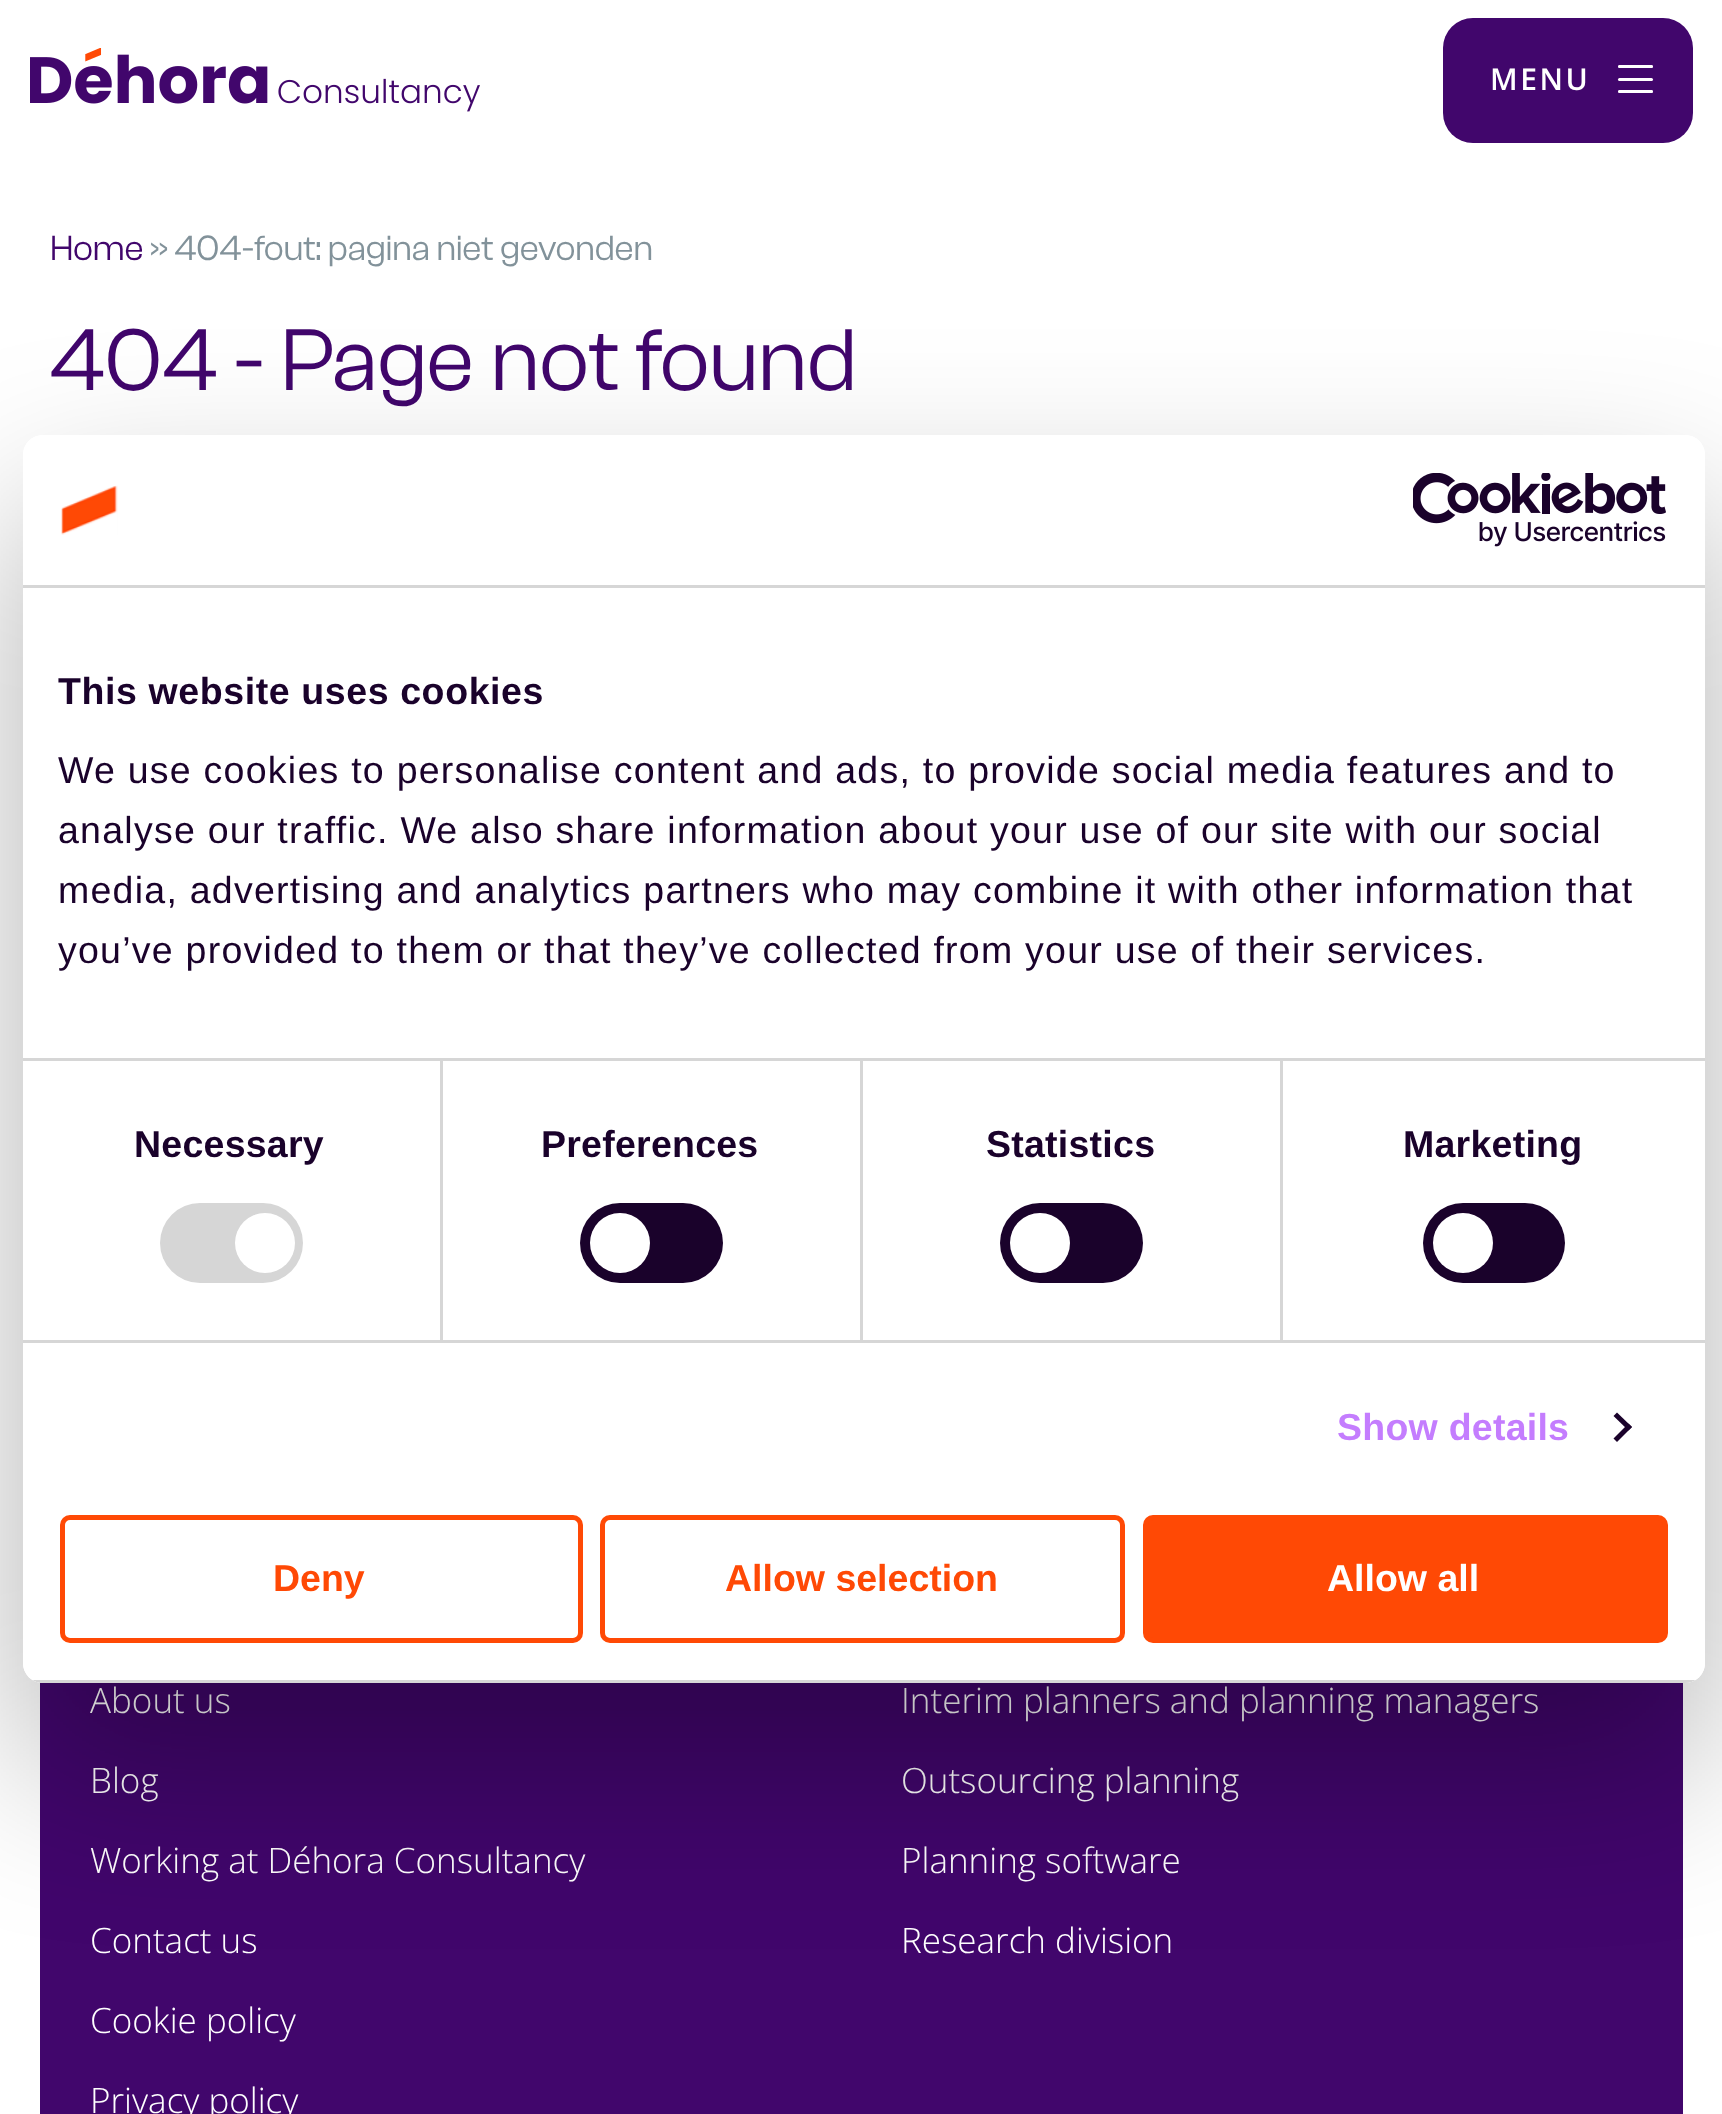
<svg xmlns="http://www.w3.org/2000/svg" width="1722" height="2114" viewBox="0 0 1722 2114">
  <defs>
    <clipPath id="clip1"><path d="M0 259H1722V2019H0ZM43 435H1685C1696 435 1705 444 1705 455V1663C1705 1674 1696 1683 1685 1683H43C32 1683 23 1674 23 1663V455C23 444 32 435 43 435Z" clip-rule="evenodd"/></clipPath>
    <clipPath id="clip2"><rect x="23" y="435" width="1682" height="1248" rx="20"/></clipPath>
  </defs>
  <rect width="100%" height="100%" fill="rgb(255,255,255)"/>
  <image x="30" y="48" width="450" height="64" href="pic1.png"/>
  <rect x="1443" y="18" width="250" height="125" rx="30" fill="rgb(65,6,108)"/>
  <text x="1490" y="90" font-family="Open Sans" font-size="30" font-weight="600" letter-spacing="2.5" fill="rgb(255,255,255)">MENU</text>
  <path d="M1619.5 65H1635V68H1619.5C1618.5 68 1618 67.5 1618 66.5C1618 65.5 1618.5 65 1619.5 65Z" fill="rgb(255,255,255)"/>
  <path d="M1635 65H1651.5C1652.5 65 1653 65.5 1653 66.5C1653 67.5 1652.5 68 1651.5 68H1635Z" fill="rgb(255,255,255)"/>
  <rect x="1618" y="78" width="35" height="3" rx="1.5" fill="rgb(255,255,255)"/>
  <path d="M1619.5 90H1635V93H1619.5C1618.5 93 1618 92.5 1618 91.5C1618 90.5 1618.5 90 1619.5 90Z" fill="rgb(255,255,255)"/>
  <path d="M1635 90H1651.5C1652.5 90 1653 90.5 1653 91.5C1653 92.5 1652.5 93 1651.5 93H1635Z" fill="rgb(255,255,255)"/>
  <text x="50" y="260" font-family="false" font-size="36.3" fill="rgb(65,6,108)">Home</text>
  <text x="150" y="260" font-family="false" font-size="36.3" fill="rgb(130,146,154)">» 404-fout: pagina niet gevonden</text>
  <text x="50" y="390" font-family="false" font-size="90.5" fill="rgb(65,6,108)">404 - Page not found</text>
  <rect x="40" y="1682" width="1643" height="432" fill="rgb(65,6,108)"/>
  <g font-family="Open Sans" font-size="35" font-weight="300" fill="rgb(255,255,255)">
    <text x="90" y="1713">About us</text>
    <text x="90" y="1793">Blog</text>
    <text x="90" y="1873">Working at Déhora Consultancy</text>
    <text x="90" y="1953">Contact us</text>
    <text x="90" y="2033">Cookie policy</text>
    <text x="90" y="2113">Privacy policy</text>
    <text x="901" y="1713">Interim planners and planning managers</text>
    <text x="901" y="1793">Outsourcing planning</text>
    <text x="901" y="1873">Planning software</text>
    <text x="901" y="1953">Research division</text>
  </g>
  <g clip-path="url(#clip1)">
    <rect x="23" y="515" width="1682" height="1248" rx="20" fill="rgba(0,0,0,0.3)" filter="blur(85px)"/>
  </g>
  <rect x="23" y="435" width="1682" height="1248" rx="20" fill="rgb(255,255,255)"/>
  <rect x="23" y="585" width="1682" height="3" fill="rgb(214,214,214)"/>
  <image x="61" y="485" width="57" height="50" href="pic2.png"/>
  <image x="1413" y="473" width="253" height="74" href="pic3.png"/>
  <rect x="440" y="1060" width="3" height="280" fill="rgb(214,214,214)"/>
  <rect x="860" y="1060" width="3" height="280" fill="rgb(214,214,214)"/>
  <rect x="1280" y="1060" width="3" height="280" fill="rgb(214,214,214)"/>
  <rect x="23" y="1058" width="1682" height="3" fill="rgb(214,214,214)"/>
  <text x="58" y="704" font-family="Liberation Sans" font-size="37.5" font-weight="bold" letter-spacing="0.6" fill="rgb(26,2,43)">This website uses cookies</text>
  <g font-family="Liberation Sans" font-size="37.5" letter-spacing="1.25" fill="rgb(26,2,43)">
    <text>
      <tspan x="58" y="783">We use cookies to personalise content and ads, to provide social media features and to</tspan>
      <tspan x="58" y="843">analyse our traffic. We also share information about your use of our site with our social</tspan>
      <tspan x="58" y="903">media, advertising and analytics partners who may combine it with other information that</tspan>
      <tspan x="58" y="963">you’ve provided to them or that they’ve collected from your use of their services.</tspan>
    </text>
  </g>
  <rect x="23" y="1340" width="1682" height="3" fill="rgb(214,214,214)"/>
  <text x="134" y="1157" font-family="Liberation Sans" font-size="37.5" font-weight="bold" letter-spacing="0.25" fill="rgb(26,2,43)">Necessary</text>
  <rect x="160" y="1203" width="143" height="80" rx="40" fill="rgb(214,214,214)"/>
  <circle cx="265" cy="1243" r="30" fill="rgb(255,255,255)"/>
  <text x="541" y="1157" font-family="Liberation Sans" font-size="37.5" font-weight="bold" letter-spacing="0.25" fill="rgb(26,2,43)">Preferences</text>
  <rect x="580" y="1203" width="143" height="80" rx="40" fill="rgb(26,2,43)"/>
  <circle cx="620" cy="1243" r="30" fill="rgb(255,255,255)"/>
  <text x="986" y="1157" font-family="Liberation Sans" font-size="37.5" font-weight="bold" letter-spacing="0.25" fill="rgb(26,2,43)">Statistics</text>
  <rect x="1000" y="1203" width="143" height="80" rx="40" fill="rgb(26,2,43)"/>
  <circle cx="1040" cy="1243" r="30" fill="rgb(255,255,255)"/>
  <text x="1403" y="1157" font-family="Liberation Sans" font-size="37.5" font-weight="bold" letter-spacing="0.25" fill="rgb(26,2,43)">Marketing</text>
  <rect x="1423" y="1203" width="142" height="80" rx="40" fill="rgb(26,2,43)"/>
  <circle cx="1463" cy="1243" r="30" fill="rgb(255,255,255)"/>
  <text x="1337" y="1440" font-family="Liberation Sans" font-size="37.5" font-weight="bold" letter-spacing="0.25" fill="rgb(196,125,254)">Show details</text>
  <path d="M1617 1412.5L1632 1427L1628.5 1430.5L1613.5 1416Z" fill="rgb(26,2,43)"/>
  <path d="M1628.5 1423.5L1632 1427L1617 1442L1613.5 1438.5Z" fill="rgb(26,2,43)"/>
  <g clip-path="url(#clip2)">
    <rect x="32" y="1680" width="1664" height="3" fill="rgb(214,214,214)"/>
  </g>
  <rect x="62.5" y="1517.5" width="518" height="123" rx="7.5" fill="none" stroke="rgb(255,73,5)" stroke-width="5"/>
  <text x="273" y="1591" font-family="Liberation Sans" font-size="37.5" font-weight="bold" fill="rgb(255,73,5)">Deny</text>
  <rect x="602.5" y="1517.5" width="520" height="123" rx="7.5" fill="none" stroke="rgb(255,73,5)" stroke-width="5"/>
  <text x="725" y="1591" font-family="Liberation Sans" font-size="37.5" font-weight="bold" fill="rgb(255,73,5)">Allow selection</text>
  <rect x="1145.5" y="1517.5" width="520" height="123" rx="7.5" fill="rgb(255,73,5)" stroke="rgb(255,73,5)" stroke-width="5"/>
  <text x="1327" y="1591" font-family="Liberation Sans" font-size="37.5" font-weight="bold" fill="rgb(255,255,255)">Allow all</text>
</svg>
